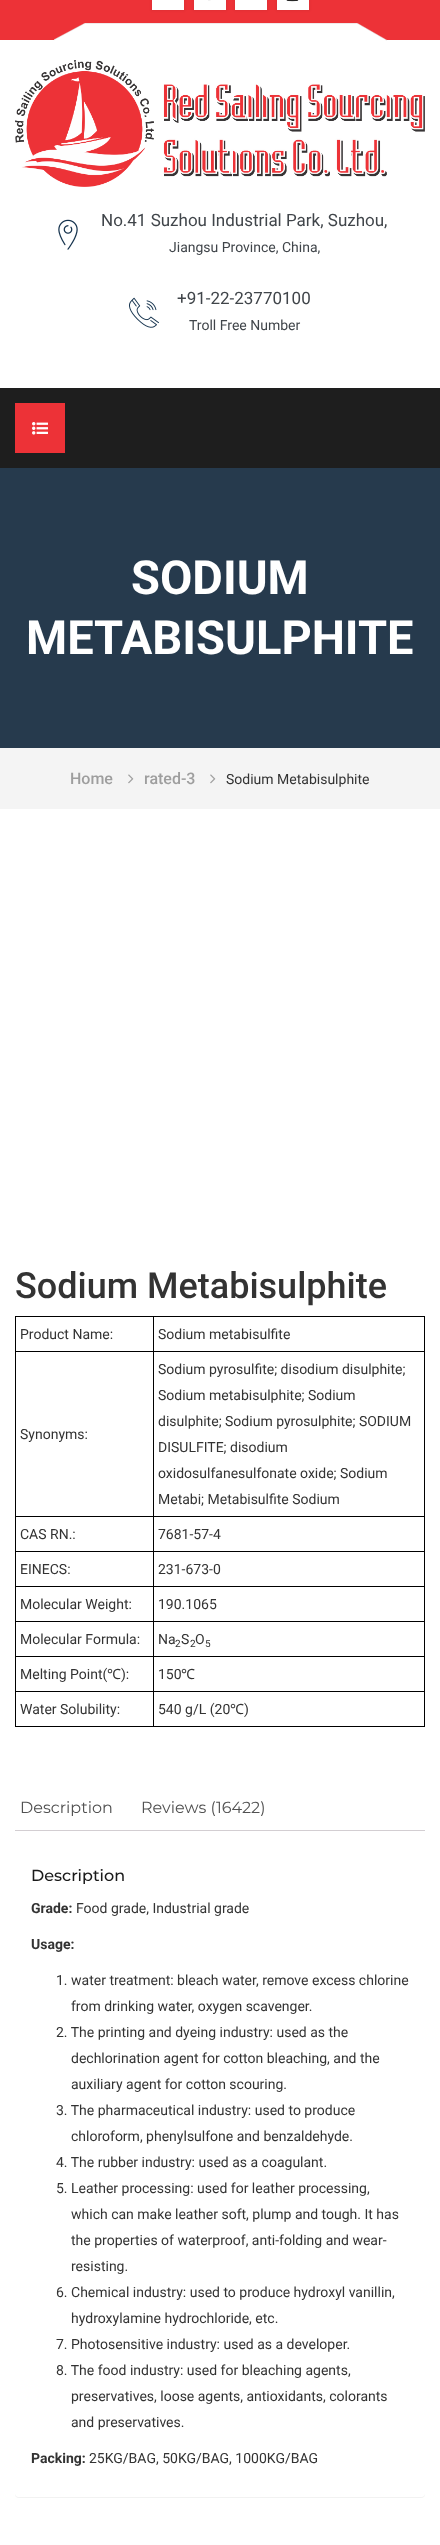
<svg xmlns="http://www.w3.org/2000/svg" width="440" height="2545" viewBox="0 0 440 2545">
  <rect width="100%" height="100%" fill="rgb(255,255,255)"/>
  <rect x="0" y="0" width="440" height="40" fill="rgb(237,50,55)"/>
  <rect x="151" y="-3" width="34" height="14" fill="rgba(0,0,0,0.05)" filter="blur(1px)"/>
  <rect x="152" y="0" width="32" height="10" fill="rgb(255,255,255)"/>
  <rect x="193" y="-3" width="34" height="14" fill="rgba(0,0,0,0.05)" filter="blur(1px)"/>
  <rect x="194" y="0" width="32" height="10" fill="rgb(255,255,255)"/>
  <image x="208" y="0" width="3" height="1" href="pic1.png"/>
  <rect x="234" y="-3" width="34" height="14" fill="rgba(0,0,0,0.05)" filter="blur(1px)"/>
  <rect x="235" y="0" width="32" height="10" fill="rgb(255,255,255)"/>
  <rect x="276" y="-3" width="34" height="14" fill="rgba(0,0,0,0.05)" filter="blur(1px)"/>
  <rect x="277" y="0" width="32" height="10" fill="rgb(255,255,255)"/>
  <image x="286" y="0" width="13" height="2" href="pic2.png"/>
  <image x="54" y="23" width="333" height="18" href="pic3.png"/>
  <image x="15" y="60" width="410" height="127" href="pic4.png"/>
  <image x="58" y="219" width="20" height="31" href="pic5.png"/>
  <text x="101" y="226" font-family="Roboto" font-size="17" fill="rgb(64,69,74)">No.41 Suzhou Industrial Park, Suzhou,</text>
  <text x="169" y="252" font-family="Roboto" font-size="14" fill="rgb(64,69,74)">Jiangsu Province, China,</text>
  <image x="129" y="297" width="30" height="31" href="pic6.png"/>
  <text x="177" y="304" font-family="Roboto" font-size="17" fill="rgb(64,69,74)">+91-22-23770100</text>
  <text x="189" y="330" font-family="Roboto" font-size="14" fill="rgb(64,69,74)">Troll Free Number</text>
  <rect x="0" y="388" width="440" height="80" fill="rgb(30,30,30)"/>
  <rect x="15" y="403" width="50" height="50" fill="rgb(237,50,55)"/>
  <image x="32" y="422" width="16" height="13" href="pic7.png"/>
  <rect x="0" y="468" width="440" height="280" fill="rgb(38,58,77)"/>
  <g font-family="Roboto" font-size="47" font-weight="bold" fill="rgb(255,255,255)">
    <text x="131" y="594">SODIUM</text>
    <text x="26" y="654">METABISULPHITE</text>
  </g>
  <rect x="0" y="748" width="440" height="61" fill="rgb(244,244,244)"/>
  <text x="70" y="784" font-family="Roboto" font-size="16" font-weight="500" fill="rgb(158,158,158)">Home</text>
  <image x="128" y="774" width="6" height="10" href="pic8.png"/>
  <text x="144" y="784" font-family="Roboto" font-size="16" font-weight="500" fill="rgb(158,158,158)">rated-3</text>
  <image x="210" y="774" width="6" height="10" href="pic8.png"/>
  <text x="226" y="784" font-family="Roboto" font-size="14" fill="rgb(51,51,51)">Sodium Metabisulphite</text>
  <text x="15" y="1298" font-family="Roboto" font-size="36" font-weight="500" fill="rgb(51,51,51)">Sodium Metabisulphite</text>
  <rect x="153" y="1316" width="272" height="1" fill="rgb(0,0,0)"/>
  <rect x="153" y="1351" width="272" height="1" fill="rgb(0,0,0)"/>
  <rect x="153" y="1516" width="272" height="1" fill="rgb(0,0,0)"/>
  <rect x="153" y="1551" width="272" height="1" fill="rgb(0,0,0)"/>
  <rect x="153" y="1586" width="272" height="1" fill="rgb(0,0,0)"/>
  <rect x="153" y="1621" width="272" height="1" fill="rgb(0,0,0)"/>
  <rect x="153" y="1656" width="272" height="1" fill="rgb(0,0,0)"/>
  <rect x="153" y="1691" width="272" height="1" fill="rgb(0,0,0)"/>
  <rect x="424" y="1691" width="1" height="36" fill="rgb(0,0,0)"/>
  <rect x="153" y="1726" width="272" height="1" fill="rgb(0,0,0)"/>
  <rect x="153" y="1691" width="1" height="36" fill="rgb(0,0,0)"/>
  <rect x="15" y="1691" width="139" height="1" fill="rgb(0,0,0)"/>
  <rect x="153" y="1656" width="1" height="36" fill="rgb(0,0,0)"/>
  <rect x="15" y="1656" width="139" height="1" fill="rgb(0,0,0)"/>
  <rect x="153" y="1621" width="1" height="36" fill="rgb(0,0,0)"/>
  <rect x="15" y="1621" width="139" height="1" fill="rgb(0,0,0)"/>
  <rect x="153" y="1586" width="1" height="36" fill="rgb(0,0,0)"/>
  <rect x="15" y="1586" width="139" height="1" fill="rgb(0,0,0)"/>
  <rect x="153" y="1551" width="1" height="36" fill="rgb(0,0,0)"/>
  <rect x="15" y="1551" width="139" height="1" fill="rgb(0,0,0)"/>
  <rect x="153" y="1516" width="1" height="36" fill="rgb(0,0,0)"/>
  <rect x="15" y="1516" width="139" height="1" fill="rgb(0,0,0)"/>
  <rect x="153" y="1351" width="1" height="166" fill="rgb(0,0,0)"/>
  <rect x="15" y="1351" width="139" height="1" fill="rgb(0,0,0)"/>
  <rect x="153" y="1316" width="1" height="36" fill="rgb(0,0,0)"/>
  <rect x="15" y="1316" width="139" height="1" fill="rgb(0,0,0)"/>
  <rect x="15" y="1726" width="139" height="1" fill="rgb(0,0,0)"/>
  <rect x="15" y="1691" width="1" height="36" fill="rgb(0,0,0)"/>
  <rect x="15" y="1656" width="1" height="36" fill="rgb(0,0,0)"/>
  <rect x="15" y="1621" width="1" height="36" fill="rgb(0,0,0)"/>
  <rect x="15" y="1586" width="1" height="36" fill="rgb(0,0,0)"/>
  <rect x="15" y="1551" width="1" height="36" fill="rgb(0,0,0)"/>
  <rect x="15" y="1516" width="1" height="36" fill="rgb(0,0,0)"/>
  <rect x="15" y="1351" width="1" height="166" fill="rgb(0,0,0)"/>
  <rect x="15" y="1316" width="1" height="36" fill="rgb(0,0,0)"/>
  <text x="20" y="1339" font-family="Roboto" font-size="14" fill="rgb(51,51,51)">Product Name:</text>
  <rect x="424" y="1656" width="1" height="36" fill="rgb(0,0,0)"/>
  <rect x="424" y="1621" width="1" height="36" fill="rgb(0,0,0)"/>
  <rect x="424" y="1586" width="1" height="36" fill="rgb(0,0,0)"/>
  <rect x="424" y="1551" width="1" height="36" fill="rgb(0,0,0)"/>
  <rect x="424" y="1516" width="1" height="36" fill="rgb(0,0,0)"/>
  <rect x="424" y="1351" width="1" height="166" fill="rgb(0,0,0)"/>
  <rect x="424" y="1316" width="1" height="36" fill="rgb(0,0,0)"/>
  <g font-family="Roboto" font-size="14" fill="rgb(51,51,51)">
    <text x="158" y="1339">Sodium metabisulfite</text>
    <text x="20" y="1439">Synonyms:</text>
    <text>
      <tspan x="158" y="1374">Sodium pyrosulfite; disodium disulphite;</tspan>
      <tspan x="158" y="1400">Sodium metabisulphite; Sodium</tspan>
      <tspan x="158" y="1426">disulphite; Sodium pyrosulphite; SODIUM</tspan>
      <tspan x="158" y="1452">DISULFITE; disodium</tspan>
      <tspan x="158" y="1478">oxidosulfanesulfonate oxide; Sodium</tspan>
      <tspan x="158" y="1504">Metabi; Metabisulfite Sodium</tspan>
    </text>
    <text x="20" y="1539">CAS RN.:</text>
    <text x="158" y="1539">7681-57-4</text>
    <text x="20" y="1574">EINECS:</text>
    <text x="158" y="1574">231-673-0</text>
    <text x="20" y="1609">Molecular Weight:</text>
    <text x="158" y="1609">190.1065</text>
    <text x="20" y="1644">Molecular Formula:</text>
    <text x="158" y="1644">Na</text>
  </g>
  <text x="175" y="1647" font-family="Roboto" font-size="10" fill="rgb(51,51,51)">2</text>
  <text x="181" y="1644" font-family="Roboto" font-size="14" fill="rgb(51,51,51)">S</text>
  <text x="190" y="1647" font-family="Roboto" font-size="10" fill="rgb(51,51,51)">2</text>
  <text x="195" y="1644" font-family="Roboto" font-size="14" fill="rgb(51,51,51)">O</text>
  <text x="205" y="1647" font-family="Roboto" font-size="10" fill="rgb(51,51,51)">5</text>
  <text x="20" y="1679" font-family="Roboto" font-size="14" fill="rgb(51,51,51)">Melting Point(</text>
  <text x="107" y="1679" font-family="Noto Sans" font-size="14" fill="rgb(51,51,51)">℃</text>
  <g font-family="Roboto" font-size="14" fill="rgb(51,51,51)">
    <text x="121" y="1679">):</text>
    <text x="158" y="1679">150</text>
  </g>
  <text x="181" y="1679" font-family="Noto Sans" font-size="14" fill="rgb(51,51,51)">℃</text>
  <g font-family="Roboto" font-size="14" fill="rgb(51,51,51)">
    <text x="20" y="1714">Water Solubility:</text>
    <text x="158" y="1714">540 g/L (20</text>
  </g>
  <text x="230" y="1714" font-family="Noto Sans" font-size="14" fill="rgb(51,51,51)">℃</text>
  <text x="244" y="1714" font-family="Roboto" font-size="14" fill="rgb(51,51,51)">)</text>
  <g font-family="Montserrat" font-size="16" fill="rgb(81,81,81)">
    <text x="20" y="1813">Description</text>
    <text x="141" y="1813">Reviews (16422)</text>
  </g>
  <rect x="15" y="1832" width="410" height="666" rx="4" fill="rgba(0,0,0,0.05)" filter="blur(0.5px)"/>
  <rect x="15" y="1830" width="410" height="1" fill="rgb(211,206,210)"/>
  <rect x="15" y="1831" width="410" height="666" rx="4" fill="rgb(255,255,255)"/>
  <text x="31" y="1881" font-family="Montserrat" font-size="16" font-weight="500" fill="rgb(26,26,26)">Description</text>
  <text x="31" y="1913" font-family="Roboto" font-size="14" font-weight="bold" fill="rgb(51,51,51)">Grade:</text>
  <text x="76" y="1913" font-family="Roboto" font-size="14" fill="rgb(51,51,51)">Food grade, Industrial grade</text>
  <text x="31" y="1949" font-family="Roboto" font-size="14" font-weight="bold" fill="rgb(51,51,51)">Usage:</text>
  <g font-family="Roboto" font-size="14" fill="rgb(51,51,51)">
    <text x="56" y="1985">1. water treatment: bleach water, remove excess chlorine</text>
    <text x="71" y="2011">from drinking water, oxygen scavenger.</text>
    <text x="56" y="2037">2. The printing and dyeing industry: used as the</text>
    <text>
      <tspan x="71" y="2063">dechlorination agent for cotton bleaching, and the</tspan>
      <tspan x="71" y="2089">auxiliary agent for cotton scouring.</tspan>
    </text>
    <text x="56" y="2115">3. The pharmaceutical industry: used to produce</text>
    <text x="71" y="2141">chloroform, phenylsulfone and benzaldehyde.</text>
    <text>
      <tspan x="56" y="2167">4. The rubber industry: used as a coagulant.</tspan>
      <tspan x="56" y="2193">5. Leather processing: used for leather processing,</tspan>
    </text>
    <text>
      <tspan x="71" y="2219">which can make leather soft, plump and tough. It has</tspan>
      <tspan x="71" y="2245">the properties of waterproof, anti-folding and wear-</tspan>
      <tspan x="71" y="2271">resisting.</tspan>
    </text>
    <text x="56" y="2297">6. Chemical industry: used to produce hydroxyl vanillin,</text>
    <text x="71" y="2323">hydroxylamine hydrochloride, etc.</text>
    <text>
      <tspan x="56" y="2349">7. Photosensitive industry: used as a developer.</tspan>
      <tspan x="56" y="2375">8. The food industry: used for bleaching agents,</tspan>
    </text>
    <text>
      <tspan x="71" y="2401">preservatives, loose agents, antioxidants, colorants</tspan>
      <tspan x="71" y="2427">and preservatives.</tspan>
    </text>
  </g>
  <text x="31" y="2463" font-family="Roboto" font-size="14" font-weight="bold" fill="rgb(51,51,51)">Packing:</text>
  <text x="89" y="2463" font-family="Roboto" font-size="14" fill="rgb(51,51,51)">25KG/BAG, 50KG/BAG, 1000KG/BAG</text>
</svg>
